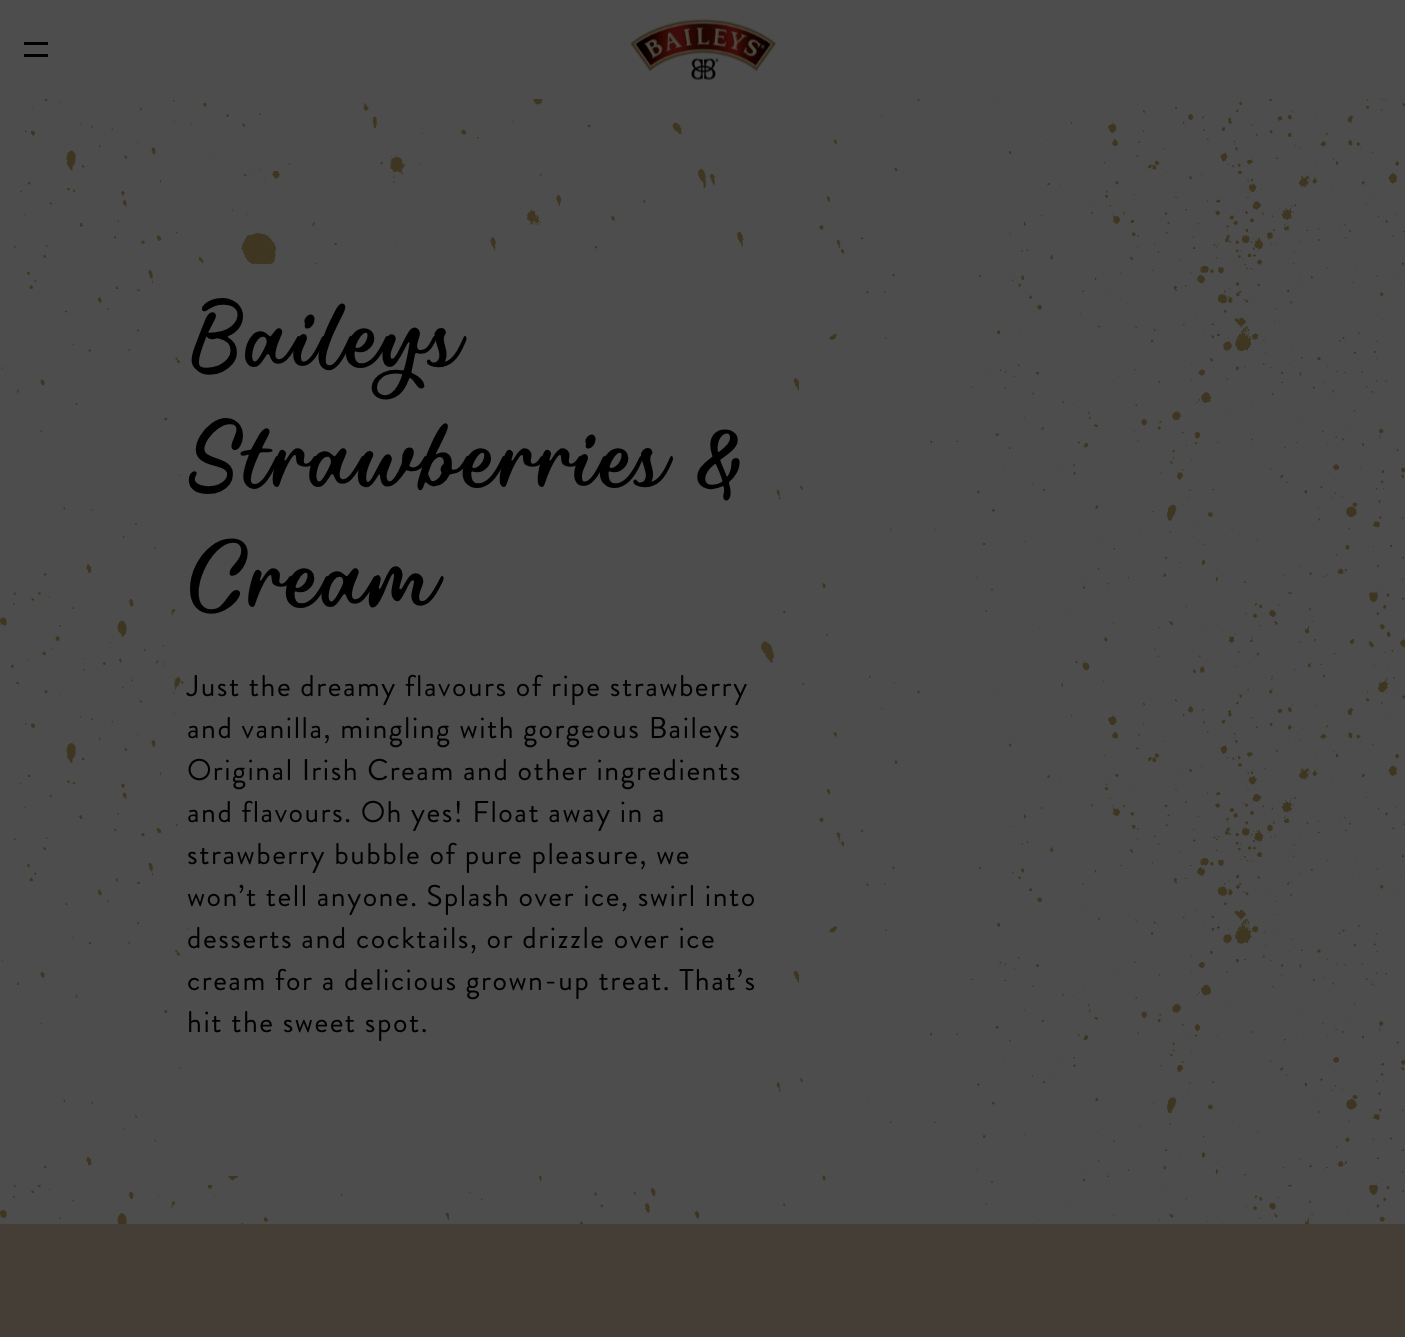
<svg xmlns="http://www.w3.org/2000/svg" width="1405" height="1337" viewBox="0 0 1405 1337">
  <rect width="100%" height="100%" fill="rgb(77,77,77)"/>
  <rect x="24" y="42" width="24" height="3" fill="rgb(0,0,0)"/>
  <rect x="24" y="54" width="24" height="3" fill="rgb(0,0,0)"/>
  <image x="630" y="19" width="146" height="61" href="pic1.png"/>
  <image x="0" y="99" width="1405" height="1125" href="pic2.png"/>
  <rect x="188" y="264" width="557" height="912" fill="rgb(77,77,77)"/>
  <g font-family="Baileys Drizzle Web" font-size="120" letter-spacing="1.5" fill="rgb(0,0,0)">
    <text>
      <tspan x="187" y="366">Baileys</tspan>
      <tspan x="187" y="486" word-spacing="5">Strawberries &amp;</tspan>
      <tspan x="187" y="606">Cream</tspan>
    </text>
  </g>
  <g font-family="Brandon Grotesque" font-size="30" letter-spacing="1.5" fill="rgb(0,0,0)">
    <text>
      <tspan x="187" y="696">Just the dreamy flavours of ripe strawberry</tspan>
      <tspan x="187" y="738">and vanilla, mingling with gorgeous Baileys</tspan>
      <tspan x="187" y="780">Original Irish Cream and other ingredients</tspan>
      <tspan x="187" y="822">and flavours. Oh yes! Float away in a</tspan>
      <tspan x="187" y="864">strawberry bubble of pure pleasure, we</tspan>
      <tspan x="187" y="906">won’t tell anyone. Splash over ice, swirl into</tspan>
      <tspan x="187" y="948">desserts and cocktails, or drizzle over ice</tspan>
      <tspan x="187" y="990">cream for a delicious grown-up treat. That’s</tspan>
      <tspan x="187" y="1032">hit the sweet spot.</tspan>
    </text>
  </g>
  <rect x="0" y="1224" width="1405" height="113" fill="rgb(69,62,54)"/>
</svg>
